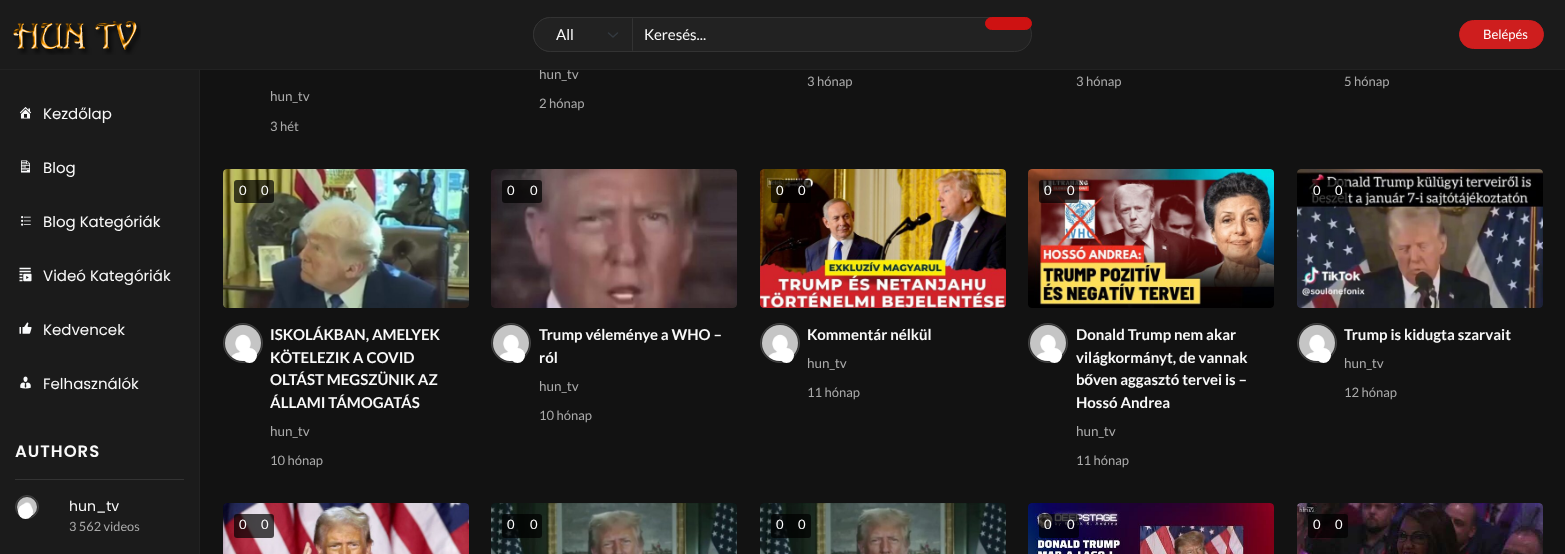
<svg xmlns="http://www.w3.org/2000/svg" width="1565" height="554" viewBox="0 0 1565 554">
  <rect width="100%" height="100%" fill="rgb(18,18,18)"/>
  <rect x="0" y="0" width="1565" height="69" fill="rgb(27,27,27)"/>
  <text x="539" y="79" font-family="Lato" font-size="13.5" fill="rgb(170,170,170)">hun_tv</text>
  <rect x="0" y="69" width="1565" height="1" fill="rgb(34,34,34)"/>
  <image x="13" y="21" width="128" height="34" href="pic1.png"/>
  <rect x="533.5" y="17.5" width="498" height="34" rx="17" fill="rgb(34,34,34)" stroke="rgb(51,51,51)"/>
  <rect x="985.5" y="17.5" width="46" height="12" rx="6" fill="rgb(206,18,18)" stroke="rgb(206,18,18)"/>
  <path d="M550.5 18H631C631.5 18 632 18.5 632 19V50C632 50.5 631.5 51 631 51H550.5C541.5 51 534 43.5 534 34.5C534 25.5 541.5 18 550.5 18Z" fill="rgb(34,34,34)"/>
  <path d="M608.5 33L613 37L617.5 33" fill="none" stroke="rgb(52,58,64)" stroke-width="1.5" stroke-linecap="round" stroke-linejoin="round"/>
  <path d="M550.5 17.5H631C632 17.5 632.5 18 632.5 19V50C632.5 51 632 51.5 631 51.5H550.5C541 51.5 533.5 44 533.5 34.5C533.5 25 541 17.5 550.5 17.5Z" fill="none" stroke="rgb(51,51,51)"/>
  <g font-family="Lato" font-size="15" fill="rgb(249,249,249)">
    <text x="556" y="40">All</text>
    <text x="644" y="40">Keresés...</text>
  </g>
  <rect x="1459.5" y="20.5" width="84" height="28" rx="14" fill="rgb(206,30,30)" stroke="rgb(206,30,30)"/>
  <text x="1483" y="39" font-family="Lato" font-size="13" fill="rgb(255,255,255)">Belépés</text>
  <rect x="0" y="70" width="199" height="484" fill="rgb(27,27,27)"/>
  <rect x="199" y="70" width="1" height="484" fill="rgb(34,34,34)"/>
  <image x="19" y="107" width="13" height="12" href="pic2.png"/>
  <text x="43" y="119" font-family="Poppins" font-size="15" fill="rgb(249,249,249)">Kezdőlap</text>
  <image x="21" y="160" width="9" height="13" href="pic3.png"/>
  <text x="43" y="173" font-family="Poppins" font-size="15" fill="rgb(249,249,249)">Blog</text>
  <image x="21" y="216" width="10" height="10" href="pic4.png"/>
  <text x="43" y="227" font-family="Poppins" font-size="15" fill="rgb(249,249,249)">Blog Kategóriák</text>
  <image x="19" y="267" width="13" height="15" href="pic5.png"/>
  <text x="43" y="281" font-family="Poppins" font-size="15" fill="rgb(249,249,249)">Videó Kategóriák</text>
  <image x="19" y="322" width="13" height="12" href="pic6.png"/>
  <text x="43" y="335" font-family="Poppins" font-size="15" fill="rgb(249,249,249)">Kedvencek</text>
  <image x="20" y="376" width="11" height="13" href="pic7.png"/>
  <text x="43" y="389" font-family="Poppins" font-size="15" fill="rgb(249,249,249)">Felhasználók</text>
  <rect x="15" y="479" width="169" height="1" fill="rgb(51,51,51)"/>
  <text x="15" y="457" font-family="Poppins" font-size="16.5" font-weight="600" letter-spacing="1" fill="rgb(249,249,249)">AUTHORS</text>
  <circle cx="27" cy="507" r="11.5" fill="rgb(51,51,51)" stroke="rgb(68,68,68)"/>
  <image x="17" y="497" width="20" height="20" href="pic8.png"/>
  <circle cx="25.5" cy="511.5" r="7.5" fill="rgb(255,255,255)"/>
  <text x="69" y="511" font-family="Poppins" font-size="14" fill="rgb(249,249,249)">hun_tv</text>
  <text x="69" y="531" font-family="Lato" font-size="12.75" fill="rgb(170,170,170)">3 562 videos</text>
  <g font-family="Lato" font-size="13" fill="rgb(170,170,170)">
    <text x="539" y="108">2 hónap</text>
    <text x="807" y="86">3 hónap</text>
    <text x="1076" y="86">3 hónap</text>
    <text x="1344" y="86">5 hónap</text>
  </g>
  <text x="270" y="101" font-family="Lato" font-size="13.5" fill="rgb(170,170,170)">hun_tv</text>
  <text x="270" y="131" font-family="Lato" font-size="13" fill="rgb(170,170,170)">3 hét</text>
  <image x="223" y="169" width="246" height="139" href="pic9.png"/>
  <rect x="234" y="180" width="40" height="23" rx="3" fill="rgba(0,0,0,0.7)"/>
  <g font-family="Lato" font-size="13" fill="rgb(255,255,255)">
    <text x="239" y="195">0</text>
    <text x="261" y="195">0</text>
  </g>
  <circle cx="243" cy="343" r="19.5" fill="rgb(51,51,51)" stroke="rgb(68,68,68)"/>
  <image x="225" y="325" width="36" height="36" href="pic10.png"/>
  <circle cx="249.5" cy="355.5" r="7.5" fill="rgb(255,255,255)"/>
  <g font-family="Lato" font-size="15" font-weight="bold" fill="rgb(249,249,249)">
    <text>
      <tspan x="270" y="340">ISKOLÁKBAN, AMELYEK</tspan>
      <tspan x="270" y="363">KÖTELEZIK A COVID</tspan>
      <tspan x="270" y="385">OLTÁST MEGSZÜNIK AZ</tspan>
      <tspan x="270" y="408">ÁLLAMI TÁMOGATÁS</tspan>
    </text>
  </g>
  <text x="270" y="436" font-family="Lato" font-size="13.5" fill="rgb(170,170,170)">hun_tv</text>
  <text x="270" y="465" font-family="Lato" font-size="13" fill="rgb(170,170,170)">10 hónap</text>
  <image x="491" y="169" width="246" height="139" href="pic11.png"/>
  <rect x="502" y="180" width="40" height="23" rx="3" fill="rgba(0,0,0,0.7)"/>
  <g font-family="Lato" font-size="13" fill="rgb(255,255,255)">
    <text x="507" y="195">0</text>
    <text x="530" y="195">0</text>
  </g>
  <circle cx="511" cy="343" r="19.5" fill="rgb(51,51,51)" stroke="rgb(68,68,68)"/>
  <image x="493" y="325" width="36" height="36" href="pic12.png"/>
  <circle cx="517.5" cy="355.5" r="7.5" fill="rgb(255,255,255)"/>
  <g font-family="Lato" font-size="15" font-weight="bold" fill="rgb(249,249,249)">
    <text>
      <tspan x="539" y="340">Trump véleménye a WHO –</tspan>
      <tspan x="539" y="363">ról</tspan>
    </text>
  </g>
  <text x="539" y="391" font-family="Lato" font-size="13.5" fill="rgb(170,170,170)">hun_tv</text>
  <text x="539" y="420" font-family="Lato" font-size="13" fill="rgb(170,170,170)">10 hónap</text>
  <image x="760" y="169" width="246" height="139" href="pic13.png"/>
  <rect x="771" y="180" width="40" height="23" rx="3" fill="rgba(0,0,0,0.7)"/>
  <g font-family="Lato" font-size="13" fill="rgb(255,255,255)">
    <text x="776" y="195">0</text>
    <text x="798" y="195">0</text>
  </g>
  <circle cx="780" cy="343" r="19.5" fill="rgb(51,51,51)" stroke="rgb(68,68,68)"/>
  <image x="762" y="325" width="36" height="36" href="pic14.png"/>
  <circle cx="786.5" cy="355.5" r="7.5" fill="rgb(255,255,255)"/>
  <text x="807" y="340" font-family="Lato" font-size="15" font-weight="bold" fill="rgb(249,249,249)">Kommentár nélkül</text>
  <text x="807" y="368" font-family="Lato" font-size="13.5" fill="rgb(170,170,170)">hun_tv</text>
  <text x="807" y="397" font-family="Lato" font-size="13" fill="rgb(170,170,170)">11 hónap</text>
  <image x="1028" y="169" width="246" height="139" href="pic15.png"/>
  <rect x="1039" y="180" width="40" height="23" rx="3" fill="rgba(0,0,0,0.7)"/>
  <g font-family="Lato" font-size="13" fill="rgb(255,255,255)">
    <text x="1044" y="195">0</text>
    <text x="1067" y="195">0</text>
  </g>
  <circle cx="1048" cy="343" r="19.5" fill="rgb(51,51,51)" stroke="rgb(68,68,68)"/>
  <image x="1030" y="325" width="36" height="36" href="pic16.png"/>
  <circle cx="1054.5" cy="355.5" r="7.5" fill="rgb(255,255,255)"/>
  <g font-family="Lato" font-size="15" font-weight="bold" fill="rgb(249,249,249)">
    <text>
      <tspan x="1076" y="340">Donald Trump nem akar</tspan>
      <tspan x="1076" y="363">világkormányt, de vannak</tspan>
      <tspan x="1076" y="385">b</tspan>
    </text>
  </g>
  <text x="1084" y="385" font-family="Liberation Sans" font-size="15" font-weight="bold" fill="rgb(249,249,249)">ő</text>
  <g font-family="Lato" font-size="15" font-weight="bold" fill="rgb(249,249,249)">
    <text x="1093" y="385">ven aggasztó tervei is –</text>
    <text x="1076" y="408">Hossó Andrea</text>
  </g>
  <text x="1076" y="436" font-family="Lato" font-size="13.5" fill="rgb(170,170,170)">hun_tv</text>
  <text x="1076" y="465" font-family="Lato" font-size="13" fill="rgb(170,170,170)">11 hónap</text>
  <image x="1297" y="169" width="246" height="139" href="pic17.png"/>
  <rect x="1308" y="180" width="40" height="23" rx="3" fill="rgba(0,0,0,0.7)"/>
  <g font-family="Lato" font-size="13" fill="rgb(255,255,255)">
    <text x="1313" y="195">0</text>
    <text x="1335" y="195">0</text>
  </g>
  <circle cx="1317" cy="343" r="19.5" fill="rgb(51,51,51)" stroke="rgb(68,68,68)"/>
  <image x="1299" y="325" width="36" height="36" href="pic18.png"/>
  <circle cx="1323.5" cy="355.5" r="7.5" fill="rgb(255,255,255)"/>
  <text x="1344" y="340" font-family="Lato" font-size="15" font-weight="bold" fill="rgb(249,249,249)">Trump is kidugta szarvait</text>
  <text x="1344" y="368" font-family="Lato" font-size="13.5" fill="rgb(170,170,170)">hun_tv</text>
  <text x="1344" y="397" font-family="Lato" font-size="13" fill="rgb(170,170,170)">12 hónap</text>
  <image x="223" y="503" width="246" height="51" href="pic19.png"/>
  <rect x="234" y="514" width="40" height="24" rx="3" fill="rgba(0,0,0,0.7)"/>
  <g font-family="Lato" font-size="13" fill="rgb(255,255,255)">
    <text x="239" y="529">0</text>
    <text x="261" y="529">0</text>
  </g>
  <image x="491" y="503" width="246" height="51" href="pic20.png"/>
  <rect x="502" y="514" width="40" height="24" rx="3" fill="rgba(0,0,0,0.7)"/>
  <g font-family="Lato" font-size="13" fill="rgb(255,255,255)">
    <text x="507" y="529">0</text>
    <text x="530" y="529">0</text>
  </g>
  <image x="760" y="503" width="246" height="51" href="pic21.png"/>
  <rect x="771" y="514" width="40" height="24" rx="3" fill="rgba(0,0,0,0.7)"/>
  <g font-family="Lato" font-size="13" fill="rgb(255,255,255)">
    <text x="776" y="529">0</text>
    <text x="798" y="529">0</text>
  </g>
  <image x="1028" y="503" width="246" height="51" href="pic22.png"/>
  <rect x="1039" y="514" width="40" height="24" rx="3" fill="rgba(0,0,0,0.7)"/>
  <g font-family="Lato" font-size="13" fill="rgb(255,255,255)">
    <text x="1044" y="529">0</text>
    <text x="1067" y="529">0</text>
  </g>
  <image x="1297" y="503" width="246" height="51" href="pic23.png"/>
  <rect x="1308" y="514" width="40" height="24" rx="3" fill="rgba(0,0,0,0.7)"/>
  <g font-family="Lato" font-size="13" fill="rgb(255,255,255)">
    <text x="1313" y="529">0</text>
    <text x="1335" y="529">0</text>
  </g>
</svg>
